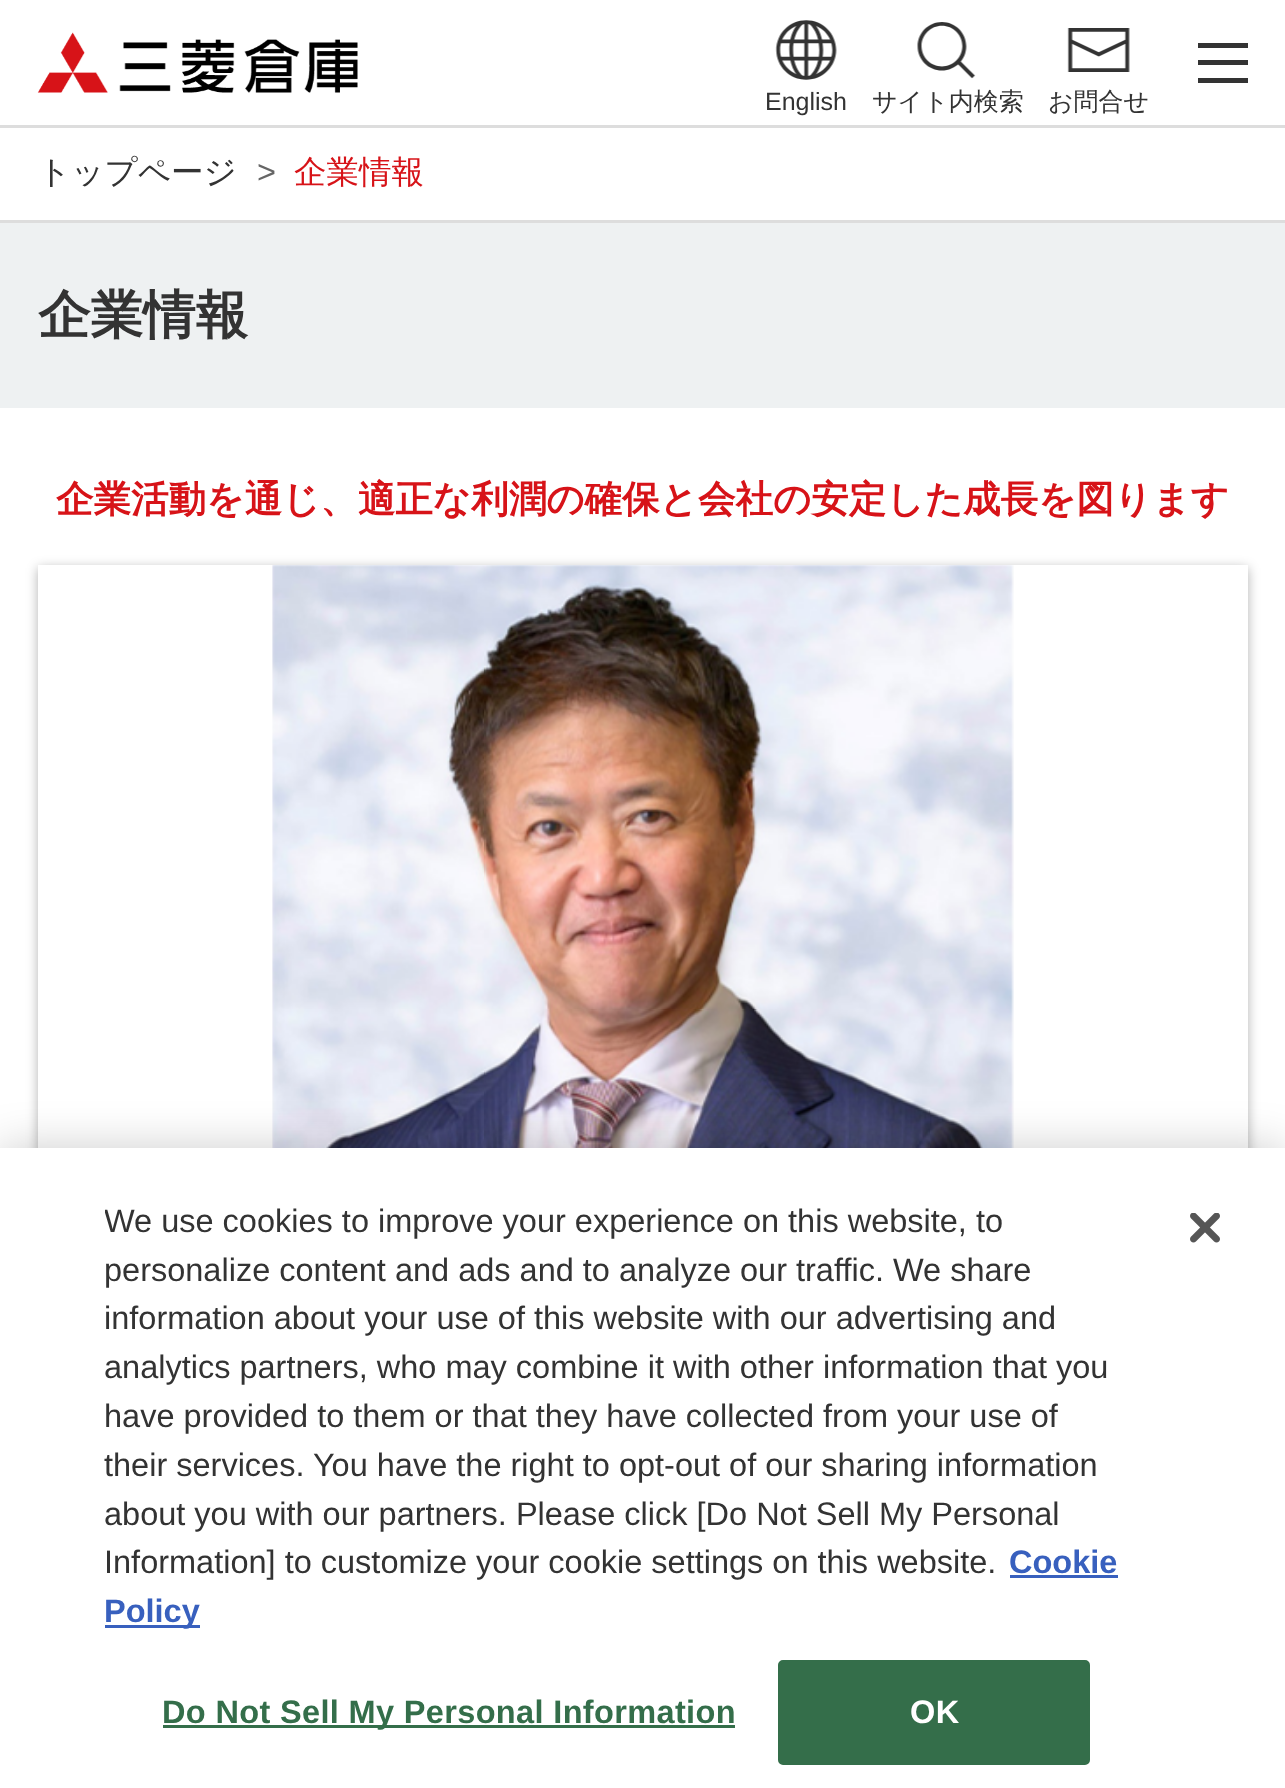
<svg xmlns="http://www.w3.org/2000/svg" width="1285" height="1788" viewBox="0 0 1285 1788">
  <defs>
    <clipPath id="clip1"><rect x="105" y="1198" width="1018" height="437"/></clipPath>
  </defs>
  <rect width="100%" height="100%" fill="rgb(255,255,255)"/>
  <rect x="0" y="125" width="1285" height="3" fill="rgb(221,221,221)"/>
  <image x="37" y="32" width="321" height="61" href="pic1.png"/>
  <rect x="1198" y="43" width="50" height="5" fill="rgb(51,51,51)"/>
  <rect x="1198" y="78" width="50" height="5" fill="rgb(51,51,51)"/>
  <rect x="1198" y="60" width="50" height="5" fill="rgb(51,51,51)"/>
  <image x="775" y="20" width="62" height="60" href="pic2.png"/>
  <text x="765" y="110" font-family="Liberation Sans" font-size="25" fill="rgb(51,51,51)">English</text>
  <image x="917" y="22" width="59" height="57" href="pic3.png"/>
  <text x="872" y="110" font-family="WenQuanYi Zen Hei" font-size="25" font-weight="500" fill="rgb(51,51,51)">サイト内検索</text>
  <image x="1067" y="28" width="63" height="44" href="pic4.png"/>
  <text x="1048" y="110" font-family="WenQuanYi Zen Hei" font-size="25" font-weight="500" fill="rgb(51,51,51)">お問合せ</text>
  <rect x="0" y="220" width="1285" height="3" fill="rgb(221,221,221)"/>
  <text x="38" y="183" font-family="WenQuanYi Zen Hei" font-size="32.5" font-weight="500" fill="rgb(51,51,51)">トップページ</text>
  <text x="257" y="183" font-family="Liberation Sans" font-size="32.5" fill="rgb(102,102,102)">&gt;</text>
  <text x="294" y="183" font-family="WenQuanYi Zen Hei" font-size="32.5" font-weight="500" fill="rgb(215,19,24)">企業情報</text>
  <rect x="0" y="223" width="1285" height="185" fill="rgb(238,241,242)"/>
  <text x="38" y="333" font-family="WenQuanYi Zen Hei" font-size="52.5" font-weight="bold" fill="rgb(51,51,51)">企業情報</text>
  <text x="56" y="512" font-family="WenQuanYi Zen Hei" font-size="37.5" font-weight="bold" fill="rgb(215,19,24)">企業活動を通じ、適正な利潤の確保と会社の安定した成長を図ります</text>
  <rect x="38" y="568" width="1210" height="865" fill="rgba(0,0,0,0.3)" filter="blur(6px)"/>
  <rect x="38" y="565" width="1210" height="583" fill="rgb(255,255,255)"/>
  <image x="272" y="565" width="742" height="583" href="pic5.png"/>
  <rect x="0" y="1148" width="1285" height="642" fill="rgba(0,0,0,0.2)" filter="blur(22.5px)"/>
  <rect x="0" y="1148" width="1285" height="640" fill="rgb(255,255,255)"/>
  <g clip-path="url(#clip1)">
    <text x="104" y="1232" font-family="Liberation Sans" font-size="32.5" fill="rgb(51,51,51)">We use cookies to improve your experience on this website, to</text>
  </g>
  <g font-family="Liberation Sans" font-size="32.5" fill="rgb(51,51,51)">
    <text>
      <tspan x="104" y="1281">personalize content and ads and to analyze our traffic. We share</tspan>
      <tspan x="104" y="1329">information about your use of this website with our advertising and</tspan>
      <tspan x="104" y="1378">analytics partners, who may combine it with other information that you</tspan>
      <tspan x="104" y="1427">have provided to them or that they have collected from your use of</tspan>
      <tspan x="104" y="1476">their services. You have the right to opt-out of our sharing information</tspan>
      <tspan x="104" y="1525">about you with our partners. Please click [Do Not Sell My Personal</tspan>
      <tspan x="104" y="1573">Information] to customize your cookie settings on this website.</tspan>
    </text>
  </g>
  <text x="1009" y="1573" font-family="Liberation Sans" font-size="32.5" font-weight="bold" fill="rgb(56,96,190)">Cookie</text>
  <rect x="1010" y="1575" width="108" height="3" fill="rgb(56,96,190)"/>
  <rect x="105" y="1625" width="95" height="3" fill="rgb(56,96,190)"/>
  <text x="104" y="1622" font-family="Liberation Sans" font-size="32.5" font-weight="bold" fill="rgb(56,96,190)">Policy</text>
  <rect x="163" y="1725" width="572" height="3" fill="rgb(52,110,74)"/>
  <text x="162" y="1723" font-family="Liberation Sans" font-size="32.5" font-weight="bold" letter-spacing="0.35" fill="rgb(52,110,74)">Do Not Sell My Personal Information</text>
  <rect x="779.5" y="1661.5" width="309" height="102" rx="3.5" fill="rgb(52,110,74)" stroke="rgb(52,110,74)" stroke-width="3"/>
  <text x="910" y="1723" font-family="Liberation Sans" font-size="32.5" font-weight="bold" letter-spacing="0.35" fill="rgb(255,255,255)">OK</text>
  <image x="1190" y="1213" width="30" height="30" href="pic6.png"/>
</svg>
